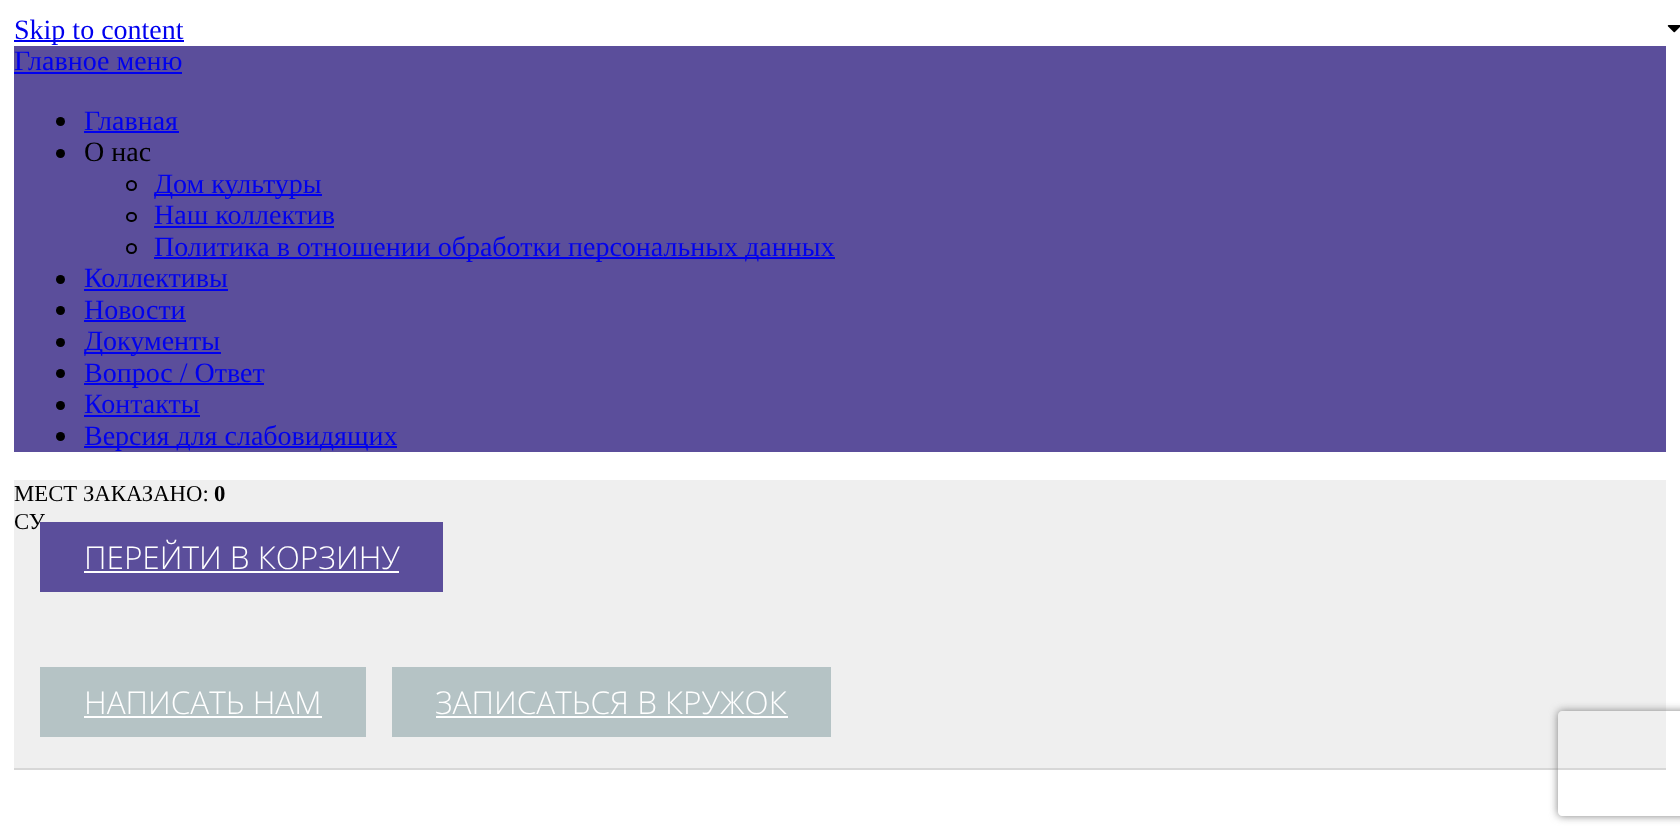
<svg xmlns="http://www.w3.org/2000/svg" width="1680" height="840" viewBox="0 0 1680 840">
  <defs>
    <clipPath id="clip1"><path d="M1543 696H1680V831H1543ZM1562 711H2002C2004 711 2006 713 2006 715V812C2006 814 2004 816 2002 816H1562C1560 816 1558 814 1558 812V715C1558 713 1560 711 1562 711Z" clip-rule="evenodd"/></clipPath>
  </defs>
  <rect width="100%" height="100%" fill="rgb(255,255,255)"/>
  <rect x="14" y="40" width="170" height="2" fill="rgb(0,0,238)"/>
  <text x="14" y="39" font-family="Liberation Serif" font-size="28" fill="rgb(0,0,238)">Skip to content</text>
  <image x="1667" y="25" width="13" height="8" href="pic1.png"/>
  <rect x="14" y="46" width="1652" height="406" fill="rgb(91,78,155)"/>
  <text x="14" y="70" font-family="Liberation Serif" font-size="28" fill="rgb(0,0,238)">Главное меню</text>
  <rect x="14" y="72" width="168" height="2" fill="rgb(0,0,238)"/>
  <circle cx="60.5" cy="121.5" r="4.5" fill="rgb(0,0,0)"/>
  <text x="84" y="130" font-family="Liberation Serif" font-size="28" fill="rgb(0,0,238)">Главная</text>
  <rect x="84" y="131" width="95" height="2" fill="rgb(0,0,238)"/>
  <circle cx="60.5" cy="153.5" r="4.5" fill="rgb(0,0,0)"/>
  <text x="84" y="161" font-family="Liberation Serif" font-size="28" fill="rgb(0,0,0)">О нас</text>
  <circle cx="131.5" cy="185.5" r="4.5" fill="none" stroke="rgb(0,0,0)" stroke-width="2"/>
  <rect x="154" y="194" width="168" height="2" fill="rgb(0,0,238)"/>
  <text x="154" y="193" font-family="Liberation Serif" font-size="28" fill="rgb(0,0,238)">Дом культуры</text>
  <rect x="127" y="213" width="9" height="8" rx="4" fill="none" stroke="rgb(0,0,0)" stroke-width="2"/>
  <text x="154" y="224" font-family="Liberation Serif" font-size="28" fill="rgb(0,0,238)">Наш коллектив</text>
  <rect x="154" y="226" width="180" height="2" fill="rgb(0,0,238)"/>
  <circle cx="131.5" cy="248.5" r="4.5" fill="none" stroke="rgb(0,0,0)" stroke-width="2"/>
  <rect x="154" y="257" width="681" height="2" fill="rgb(0,0,238)"/>
  <text x="154" y="256" font-family="Liberation Serif" font-size="28" fill="rgb(0,0,238)">Политика в отношении обработки персональных данных</text>
  <circle cx="60.5" cy="279.5" r="4.5" fill="rgb(0,0,0)"/>
  <text x="84" y="287" font-family="Liberation Serif" font-size="28" fill="rgb(0,0,238)">Коллективы</text>
  <rect x="84" y="289" width="144" height="2" fill="rgb(0,0,238)"/>
  <circle cx="60.5" cy="310.5" r="4.5" fill="rgb(0,0,0)"/>
  <text x="84" y="319" font-family="Liberation Serif" font-size="28" fill="rgb(0,0,238)">Новости</text>
  <rect x="84" y="320" width="102" height="2" fill="rgb(0,0,238)"/>
  <circle cx="60.5" cy="342.5" r="4.5" fill="rgb(0,0,0)"/>
  <rect x="84" y="352" width="137" height="2" fill="rgb(0,0,238)"/>
  <text x="84" y="350" font-family="Liberation Serif" font-size="28" fill="rgb(0,0,238)">Документы</text>
  <circle cx="60.5" cy="373.5" r="4.5" fill="rgb(0,0,0)"/>
  <rect x="84" y="383" width="180" height="2" fill="rgb(0,0,238)"/>
  <text x="84" y="382" font-family="Liberation Serif" font-size="28" fill="rgb(0,0,238)">Вопрос / Ответ</text>
  <circle cx="60.5" cy="405.5" r="4.5" fill="rgb(0,0,0)"/>
  <text x="84" y="413" font-family="Liberation Serif" font-size="28" fill="rgb(0,0,238)">Контакты</text>
  <rect x="84" y="415" width="116" height="2" fill="rgb(0,0,238)"/>
  <circle cx="60.5" cy="436.5" r="4.5" fill="rgb(0,0,0)"/>
  <rect x="84" y="446" width="313" height="2" fill="rgb(0,0,238)"/>
  <text x="84" y="445" font-family="Liberation Serif" font-size="28" fill="rgb(0,0,238)">Версия для слабовидящих</text>
  <rect x="14" y="480" width="1652" height="288" fill="rgb(239,239,239)"/>
  <rect x="14" y="768" width="1652" height="2" fill="rgb(215,215,215)"/>
  <text x="14" y="501" font-family="Liberation Serif" font-size="22.75" fill="rgb(0,0,0)">МЕСТ ЗАКАЗАНО:</text>
  <text x="214" y="501" font-family="Liberation Serif" font-size="22.75" font-weight="bold" fill="rgb(0,0,0)">0</text>
  <text x="14" y="529" font-family="Liberation Serif" font-size="22.75" fill="rgb(0,0,0)">СУ</text>
  <rect x="40" y="522" width="403" height="70" fill="rgb(91,78,155)"/>
  <text x="84" y="569" font-family="Open Sans" font-size="31.5" font-weight="300" fill="rgb(255,255,255)">ПЕРЕЙТИ В КОРЗИНУ</text>
  <rect x="84" y="571" width="315" height="2" fill="rgb(255,255,255)"/>
  <rect x="40" y="667" width="326" height="70" fill="rgb(181,195,197)"/>
  <text x="84" y="714" font-family="Open Sans" font-size="31.5" font-weight="300" fill="rgb(255,255,255)">НАПИСАТЬ НАМ</text>
  <rect x="84" y="716" width="238" height="2" fill="rgb(255,255,255)"/>
  <rect x="392" y="667" width="439" height="70" fill="rgb(181,195,197)"/>
  <text x="435" y="714" font-family="Open Sans" font-size="31.5" font-weight="300" fill="rgb(255,255,255)">ЗАПИСАТЬСЯ В КРУЖОК</text>
  <rect x="436" y="716" width="352" height="2" fill="rgb(255,255,255)"/>
  <g clip-path="url(#clip1)">
    <rect x="1558" y="711" width="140" height="105" rx="4" fill="rgb(128,128,128)" filter="blur(4.5px)"/>
  </g>
</svg>
